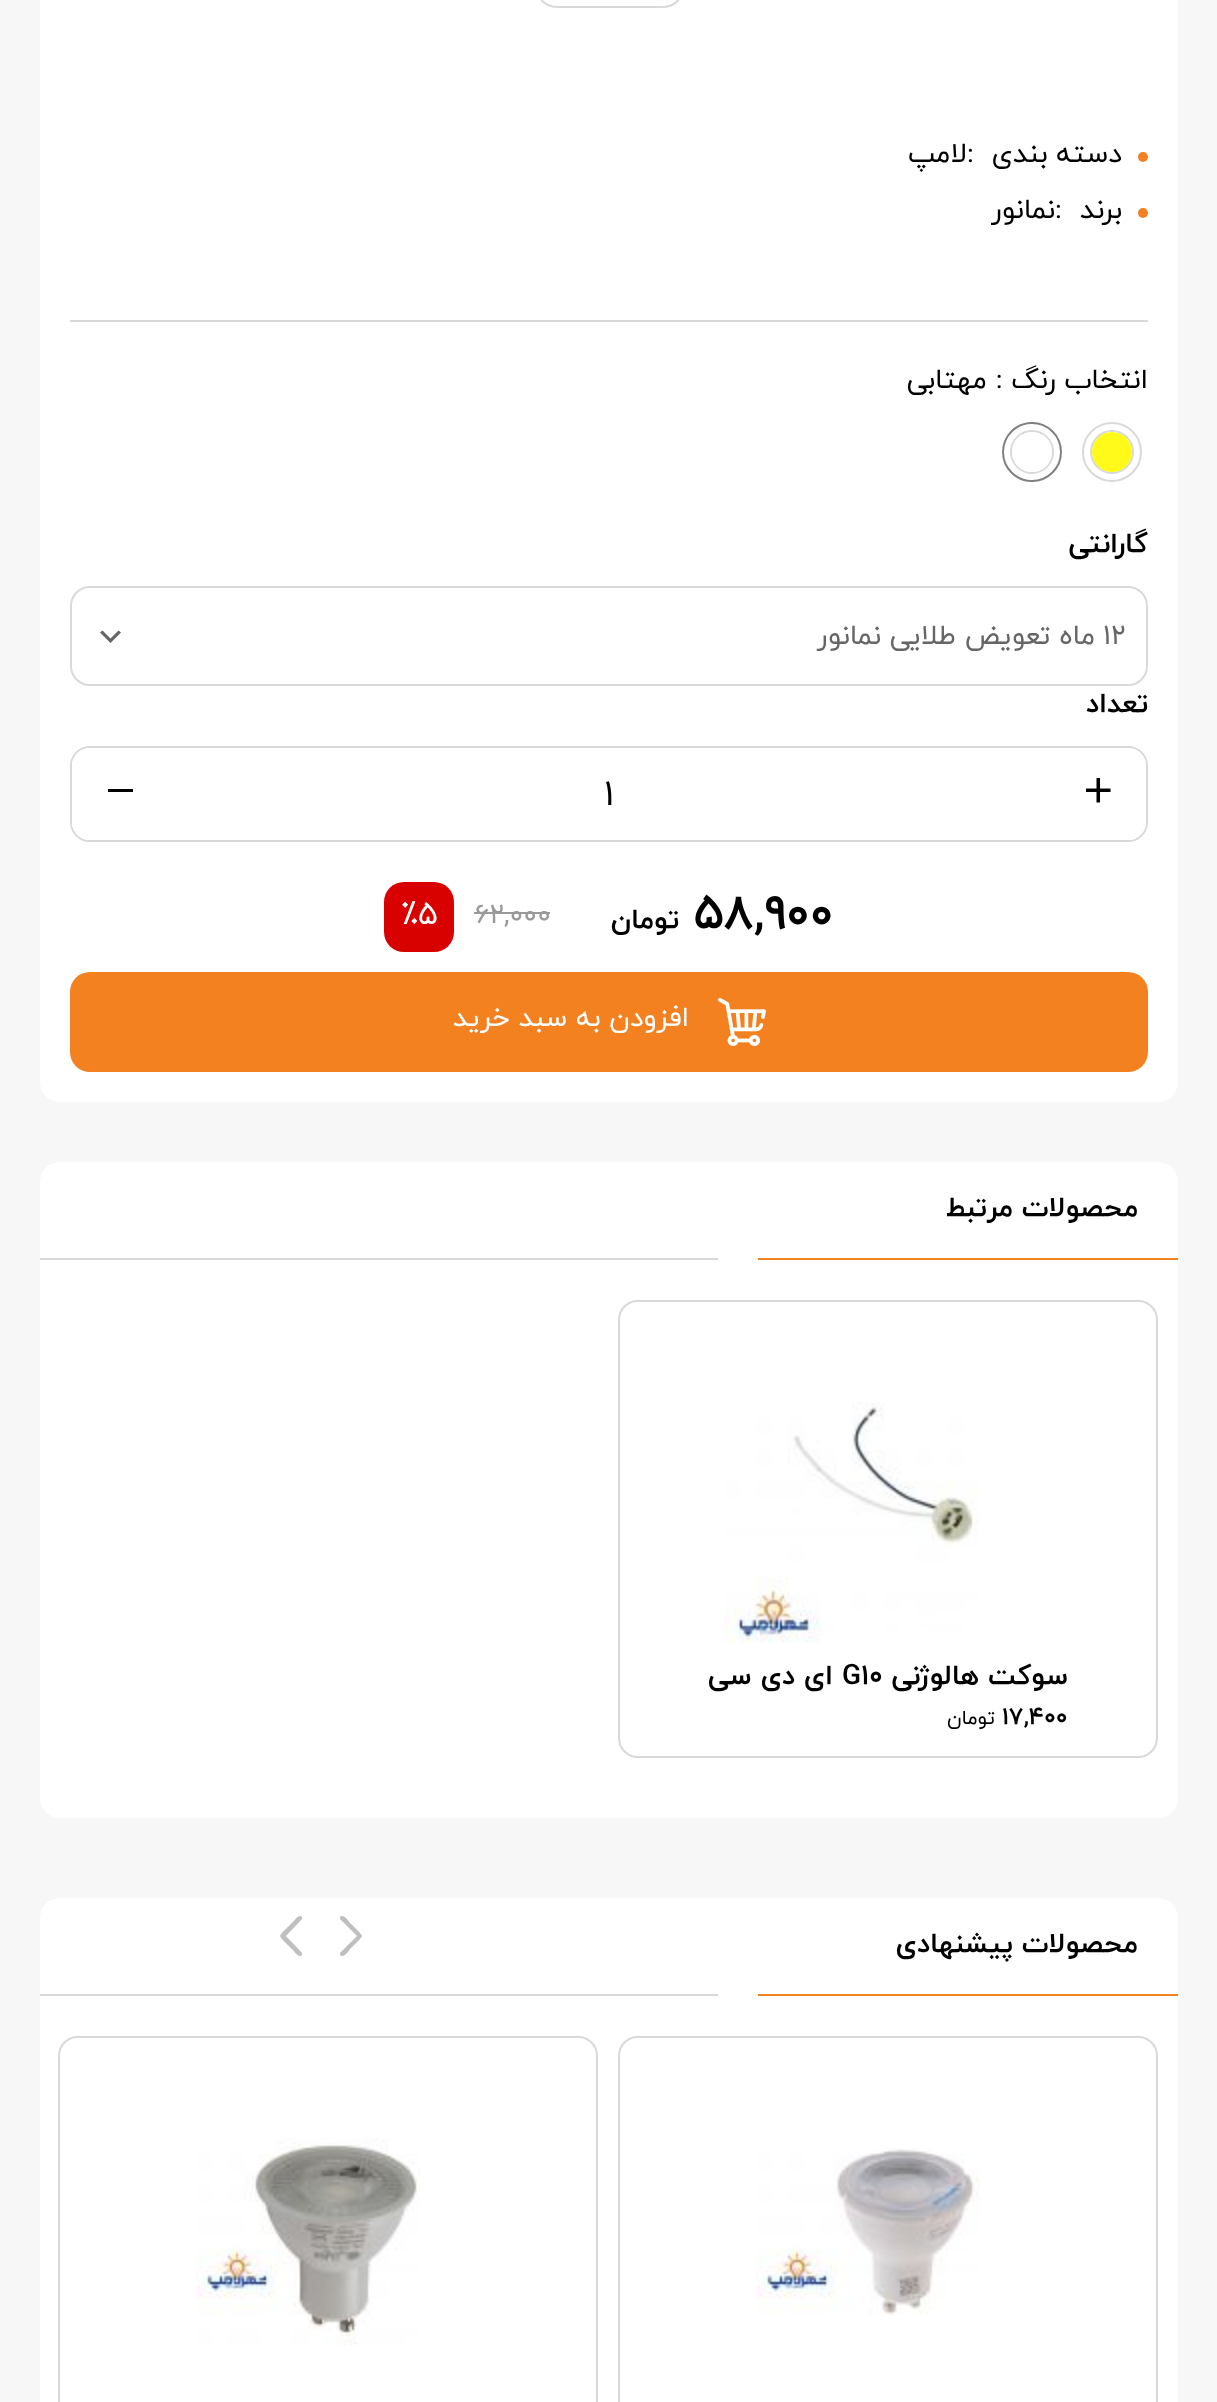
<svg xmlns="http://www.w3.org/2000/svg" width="1217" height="2402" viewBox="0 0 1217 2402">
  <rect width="100%" height="100%" fill="rgb(247,247,247)"/>
  <rect x="40" y="-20" width="1138" height="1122" rx="20" fill="rgb(255,255,255)"/>
  <rect x="539" y="-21" width="142" height="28" rx="19" fill="none" stroke="rgb(217,217,217)" stroke-width="2"/>
  <rect x="70" y="320" width="1078" height="2" fill="rgb(217,217,217)"/>
  <circle cx="1143" cy="157" r="5" fill="rgb(244,129,32)"/>
  <text x="1122" y="162" font-family="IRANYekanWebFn" font-size="28" direction="rtl" fill="rgb(0,0,0)">دسته بندی</text>
  <text x="967" y="162" font-family="IRANYekanWebFn" font-size="28" fill="rgb(0,0,0)">:</text>
  <text x="967" y="162" font-family="IRANYekanWebFn" font-size="28" direction="rtl" fill="rgb(0,0,0)">لامپ</text>
  <circle cx="1143" cy="213" r="5" fill="rgb(244,129,32)"/>
  <text x="1122" y="218" font-family="IRANYekanWebFn" font-size="28" direction="rtl" fill="rgb(0,0,0)">برند</text>
  <text x="1055" y="218" font-family="IRANYekanWebFn" font-size="28" fill="rgb(0,0,0)">:</text>
  <g font-family="IRANYekanWebFn" font-size="28" direction="rtl" fill="rgb(0,0,0)">
    <text x="1055" y="218">نمانور</text>
    <text x="1148" y="388">انتخاب رنگ : مهتابی</text>
  </g>
  <circle cx="1112" cy="452" r="21" fill="none" stroke="rgb(217,217,217)" stroke-width="2"/>
  <circle cx="1112" cy="452" r="20" fill="rgb(255,250,26)"/>
  <circle cx="1112" cy="452" r="29" fill="none" stroke="rgb(217,217,217)" stroke-width="2"/>
  <circle cx="1032" cy="452" r="21" fill="none" stroke="rgb(217,217,217)" stroke-width="2"/>
  <circle cx="1032" cy="452" r="20" fill="rgb(255,255,255)"/>
  <circle cx="1032" cy="452" r="29" fill="none" stroke="rgb(128,128,128)" stroke-width="2"/>
  <text x="1148" y="552" font-family="IRANYekanWebFn" font-size="28" font-weight="bold" direction="rtl" fill="rgb(0,0,0)">گارانتی</text>
  <rect x="71" y="587" width="1076" height="98" rx="19" fill="none" stroke="rgb(217,217,217)" stroke-width="2"/>
  <text x="1103" y="644" font-family="IRANYekanWebFn" font-size="28" fill="rgb(102,102,102)">۱۲</text>
  <text x="1095" y="644" font-family="IRANYekanWebFn" font-size="28" direction="rtl" fill="rgb(102,102,102)">ماه تعویض طلایی نمانور</text>
  <path d="M118.5 630.5L121 632.5L110.5 643L100 632.5L102.5 630.5L110.5 638.5Z" fill="rgb(102,102,102)"/>
  <text x="1148" y="712" font-family="IRANYekanWebFn" font-size="28" font-weight="bold" direction="rtl" fill="rgb(0,0,0)">تعداد</text>
  <rect x="71" y="747" width="1076" height="94" rx="19" fill="none" stroke="rgb(217,217,217)" stroke-width="2"/>
  <rect x="72" y="748" width="1074" height="92" rx="18" fill="rgb(255,255,255)"/>
  <path d="M1050 748H1128C1138 748 1146 756 1146 766V822C1146 832 1138 840 1128 840H1050Z" fill="rgb(255,255,255)"/>
  <image x="1086" y="778" width="25" height="25" href="pic1.png"/>
  <text x="604" y="805" font-family="IRANYekanWebFn" font-size="36" fill="rgb(0,0,0)">1</text>
  <path d="M90 748H168V840H90C80 840 72 832 72 822V766C72 756 80 748 90 748Z" fill="rgb(255,255,255)"/>
  <rect x="108" y="789" width="25" height="3" fill="rgb(0,0,0)"/>
  <text x="694" y="928" font-family="IRANYekanWebFn" font-size="48" font-weight="bold" fill="rgb(0,0,0)">۵۸,۹۰۰</text>
  <text x="679" y="928" font-family="IRANYekanWebFn" font-size="28" font-weight="bold" direction="rtl" fill="rgb(0,0,0)">تومان</text>
  <text x="475" y="923" font-family="IRANYekanWebFn" font-size="28" fill="rgb(153,153,153)">۶۲,۰۰۰</text>
  <rect x="474" y="912" width="76" height="2" fill="rgb(153,153,153)"/>
  <rect x="384" y="882" width="70" height="70" rx="20" fill="rgb(217,0,0)"/>
  <text x="401" y="924" font-family="IRANYekanWebFn" font-size="32" fill="rgb(255,255,255)">٪۵</text>
  <rect x="70" y="972" width="1078" height="100" rx="20" fill="rgb(244,129,32)"/>
  <image x="718" y="998" width="48" height="48" href="pic2.png"/>
  <text x="689" y="1026" font-family="IRANYekanWebFn" font-size="28" direction="rtl" fill="rgb(255,255,255)">افزودن به سبد خرید</text>
  <rect x="40" y="1162" width="1138" height="656" rx="20" fill="rgb(255,255,255)"/>
  <rect x="40" y="1258" width="678" height="2" fill="rgb(217,217,217)"/>
  <text x="1138" y="1216" font-family="IRANYekanWebFn" font-size="28" font-weight="bold" direction="rtl" fill="rgb(0,0,0)">محصولات مرتبط</text>
  <rect x="758" y="1258" width="420" height="2" fill="rgb(244,129,32)"/>
  <rect x="619" y="1301" width="538" height="456" rx="19" fill="none" stroke="rgb(217,217,217)" stroke-width="2"/>
  <image x="724" y="1402" width="255" height="241" href="pic3.png"/>
  <text x="1068" y="1684" font-family="IRANYekanWebFn" font-size="28" font-weight="bold" direction="rtl" fill="rgb(0,0,0)">سوکت هالوژنی</text>
  <text x="842" y="1684" font-family="IRANYekanWebFn" font-size="28" font-weight="bold" fill="rgb(0,0,0)">G10</text>
  <text x="833" y="1684" font-family="IRANYekanWebFn" font-size="28" font-weight="bold" direction="rtl" fill="rgb(0,0,0)">ای دی سی</text>
  <text x="1002" y="1724" font-family="IRANYekanWebFn" font-size="24" font-weight="bold" fill="rgb(0,0,0)">۱۷,۴۰۰</text>
  <text x="995" y="1724" font-family="IRANYekanWebFn" font-size="20" direction="rtl" fill="rgb(0,0,0)">تومان</text>
  <rect x="40" y="1898" width="1138" height="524" rx="20" fill="rgb(255,255,255)"/>
  <path d="M362 1936C362 1938 352 1947 350 1949C349 1951 343 1959 340 1955V1953L357 1936L340 1919V1917C343 1913 349 1921 350 1923C352 1925 362 1934 362 1936Z" fill="rgb(191,191,191)"/>
  <path d="M280 1936C280 1938 290 1947 292 1949C294 1951 299 1959 302 1955V1953L286 1936L302 1919V1917C299 1913 294 1921 292 1923C290 1925 280 1934 280 1936Z" fill="rgb(191,191,191)"/>
  <rect x="619" y="2037" width="538" height="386" rx="19" fill="none" stroke="rgb(217,217,217)" stroke-width="2"/>
  <image x="756" y="2148" width="224" height="167" href="pic4.png"/>
  <rect x="59" y="2037" width="538" height="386" rx="19" fill="none" stroke="rgb(217,217,217)" stroke-width="2"/>
  <image x="196" y="2138" width="224" height="208" href="pic5.png"/>
  <rect x="40" y="1994" width="678" height="2" fill="rgb(217,217,217)"/>
  <text x="1138" y="1952" font-family="IRANYekanWebFn" font-size="28" font-weight="bold" direction="rtl" fill="rgb(0,0,0)">محصولات پیشنهادی</text>
  <rect x="758" y="1994" width="420" height="2" fill="rgb(244,129,32)"/>
</svg>
